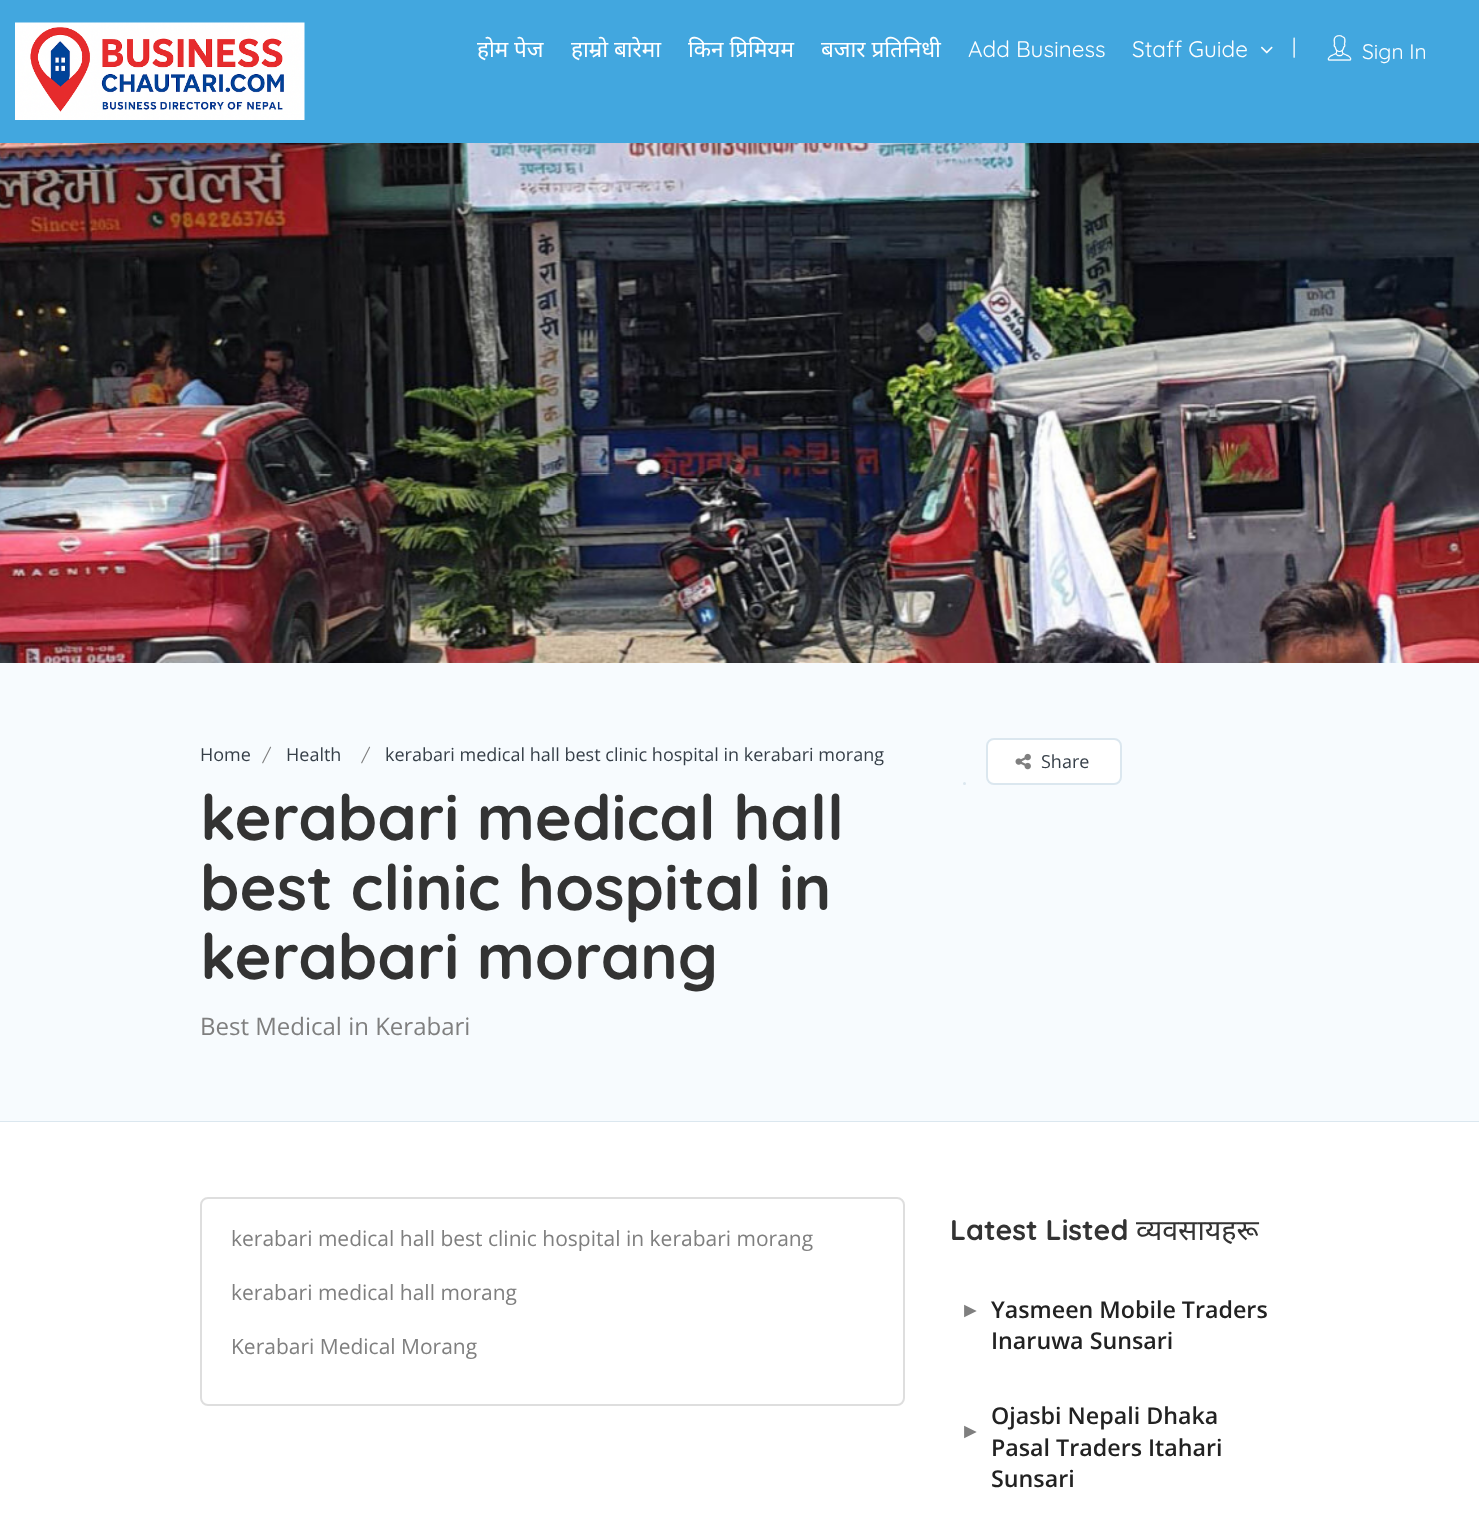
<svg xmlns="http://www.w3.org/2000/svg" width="1479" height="1525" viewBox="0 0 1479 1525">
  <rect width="100%" height="100%" fill="rgb(247,251,254)"/>
  <rect x="0" y="0" width="1479" height="143" fill="rgb(66,167,223)"/>
  <image x="15" y="22" width="290" height="98" href="pic1.png"/>
  <g font-family="Noto Sans" font-size="22.5" fill="rgb(255,255,255)">
    <text x="477" y="57">होम पेज</text>
    <text x="571" y="57">हाम्रो बारेमा</text>
    <text x="688" y="57">किन प्रिमियम</text>
    <text x="821" y="57">बजार प्रतिनिधी</text>
  </g>
  <g font-family="Quicksand" font-size="22.5" fill="rgb(255,255,255)">
    <text x="968" y="57">Add Business</text>
    <text x="1132" y="57">Staff Guide</text>
  </g>
  <image x="1260" y="46" width="13" height="8" href="pic2.png"/>
  <text x="1292" y="54" font-family="Quicksand" font-size="21" fill="rgb(255,255,255)">|</text>
  <image x="1327" y="35" width="25" height="26" href="pic3.png"/>
  <text x="1362" y="59" font-family="Quicksand" font-size="21" fill="rgb(255,255,255)">Sign In</text>
  <image x="0" y="143" width="1479" height="520" href="pic4.png"/>
  <rect x="0" y="1121" width="1479" height="1" fill="rgb(219,231,239)"/>
  <text x="200" y="761" font-family="Open Sans" font-size="18" fill="rgb(54,63,72)">Home</text>
  <text x="262" y="761" font-family="Quicksand" font-size="18" fill="rgb(127,127,127)">/</text>
  <text x="286" y="761" font-family="Open Sans" font-size="18" fill="rgb(54,63,72)">Health</text>
  <text x="361" y="761" font-family="Quicksand" font-size="18" fill="rgb(127,127,127)">/</text>
  <text x="385" y="761" font-family="Open Sans" font-size="18" fill="rgb(54,63,72)">kerabari medical hall best clinic hospital in kerabari morang</text>
  <g font-family="Quicksand" font-size="63" font-weight="bold" fill="rgb(51,51,51)">
    <text>
      <tspan x="200" y="840">kerabari medical hall</tspan>
      <tspan x="200" y="910">best clinic hospital in</tspan>
      <tspan x="200" y="979">kerabari morang</tspan>
    </text>
  </g>
  <text x="200" y="1035" font-family="Open Sans" font-size="24" fill="rgb(127,127,127)">Best Medical in Kerabari</text>
  <rect x="987" y="739" width="134" height="45" rx="7" fill="rgb(255,255,255)" stroke="rgb(219,231,239)" stroke-width="2"/>
  <image x="1015" y="753" width="16" height="17" href="pic5.png"/>
  <text x="1041" y="768" font-family="Open Sans" font-size="18" fill="rgb(54,63,72)">Share</text>
  <circle cx="964.5" cy="783.5" r="1.5" fill="rgb(219,231,239)"/>
  <rect x="0" y="1122" width="1479" height="403" fill="rgb(255,255,255)"/>
  <rect x="201" y="1198" width="703" height="207" rx="7" fill="none" stroke="rgb(222,222,222)" stroke-width="2"/>
  <g font-family="Open Sans" font-size="21" fill="rgb(127,127,127)">
    <text x="231" y="1246">kerabari medical hall best clinic hospital in kerabari morang</text>
    <text x="231" y="1300">kerabari medical hall morang</text>
    <text x="231" y="1354">Kerabari Medical Morang</text>
  </g>
  <text x="950" y="1240" font-family="Quicksand" font-size="28.5" font-weight="bold" fill="rgb(51,51,51)">Latest Listed</text>
  <text x="1136" y="1240" font-family="Noto Sans" font-size="28.5" fill="rgb(51,51,51)">व्यवसायहरू</text>
  <text x="960" y="1317" font-family="Liberation Serif" font-size="21" font-weight="bold" fill="rgb(127,127,127)">►</text>
  <g font-family="Open Sans" font-size="23.25" font-weight="600" fill="rgb(34,34,34)">
    <text>
      <tspan x="991" y="1318">Yasmeen Mobile Traders</tspan>
      <tspan x="991" y="1349">Inaruwa Sunsari</tspan>
    </text>
    <text x="991" y="1424">Ojasbi Nepali Dhaka</text>
  </g>
  <text x="960" y="1438" font-family="Liberation Serif" font-size="21" font-weight="bold" fill="rgb(127,127,127)">►</text>
  <g font-family="Open Sans" font-size="23.25" font-weight="600" fill="rgb(34,34,34)">
    <text>
      <tspan x="991" y="1456">Pasal Traders Itahari</tspan>
      <tspan x="991" y="1487">Sunsari</tspan>
    </text>
  </g>
</svg>
